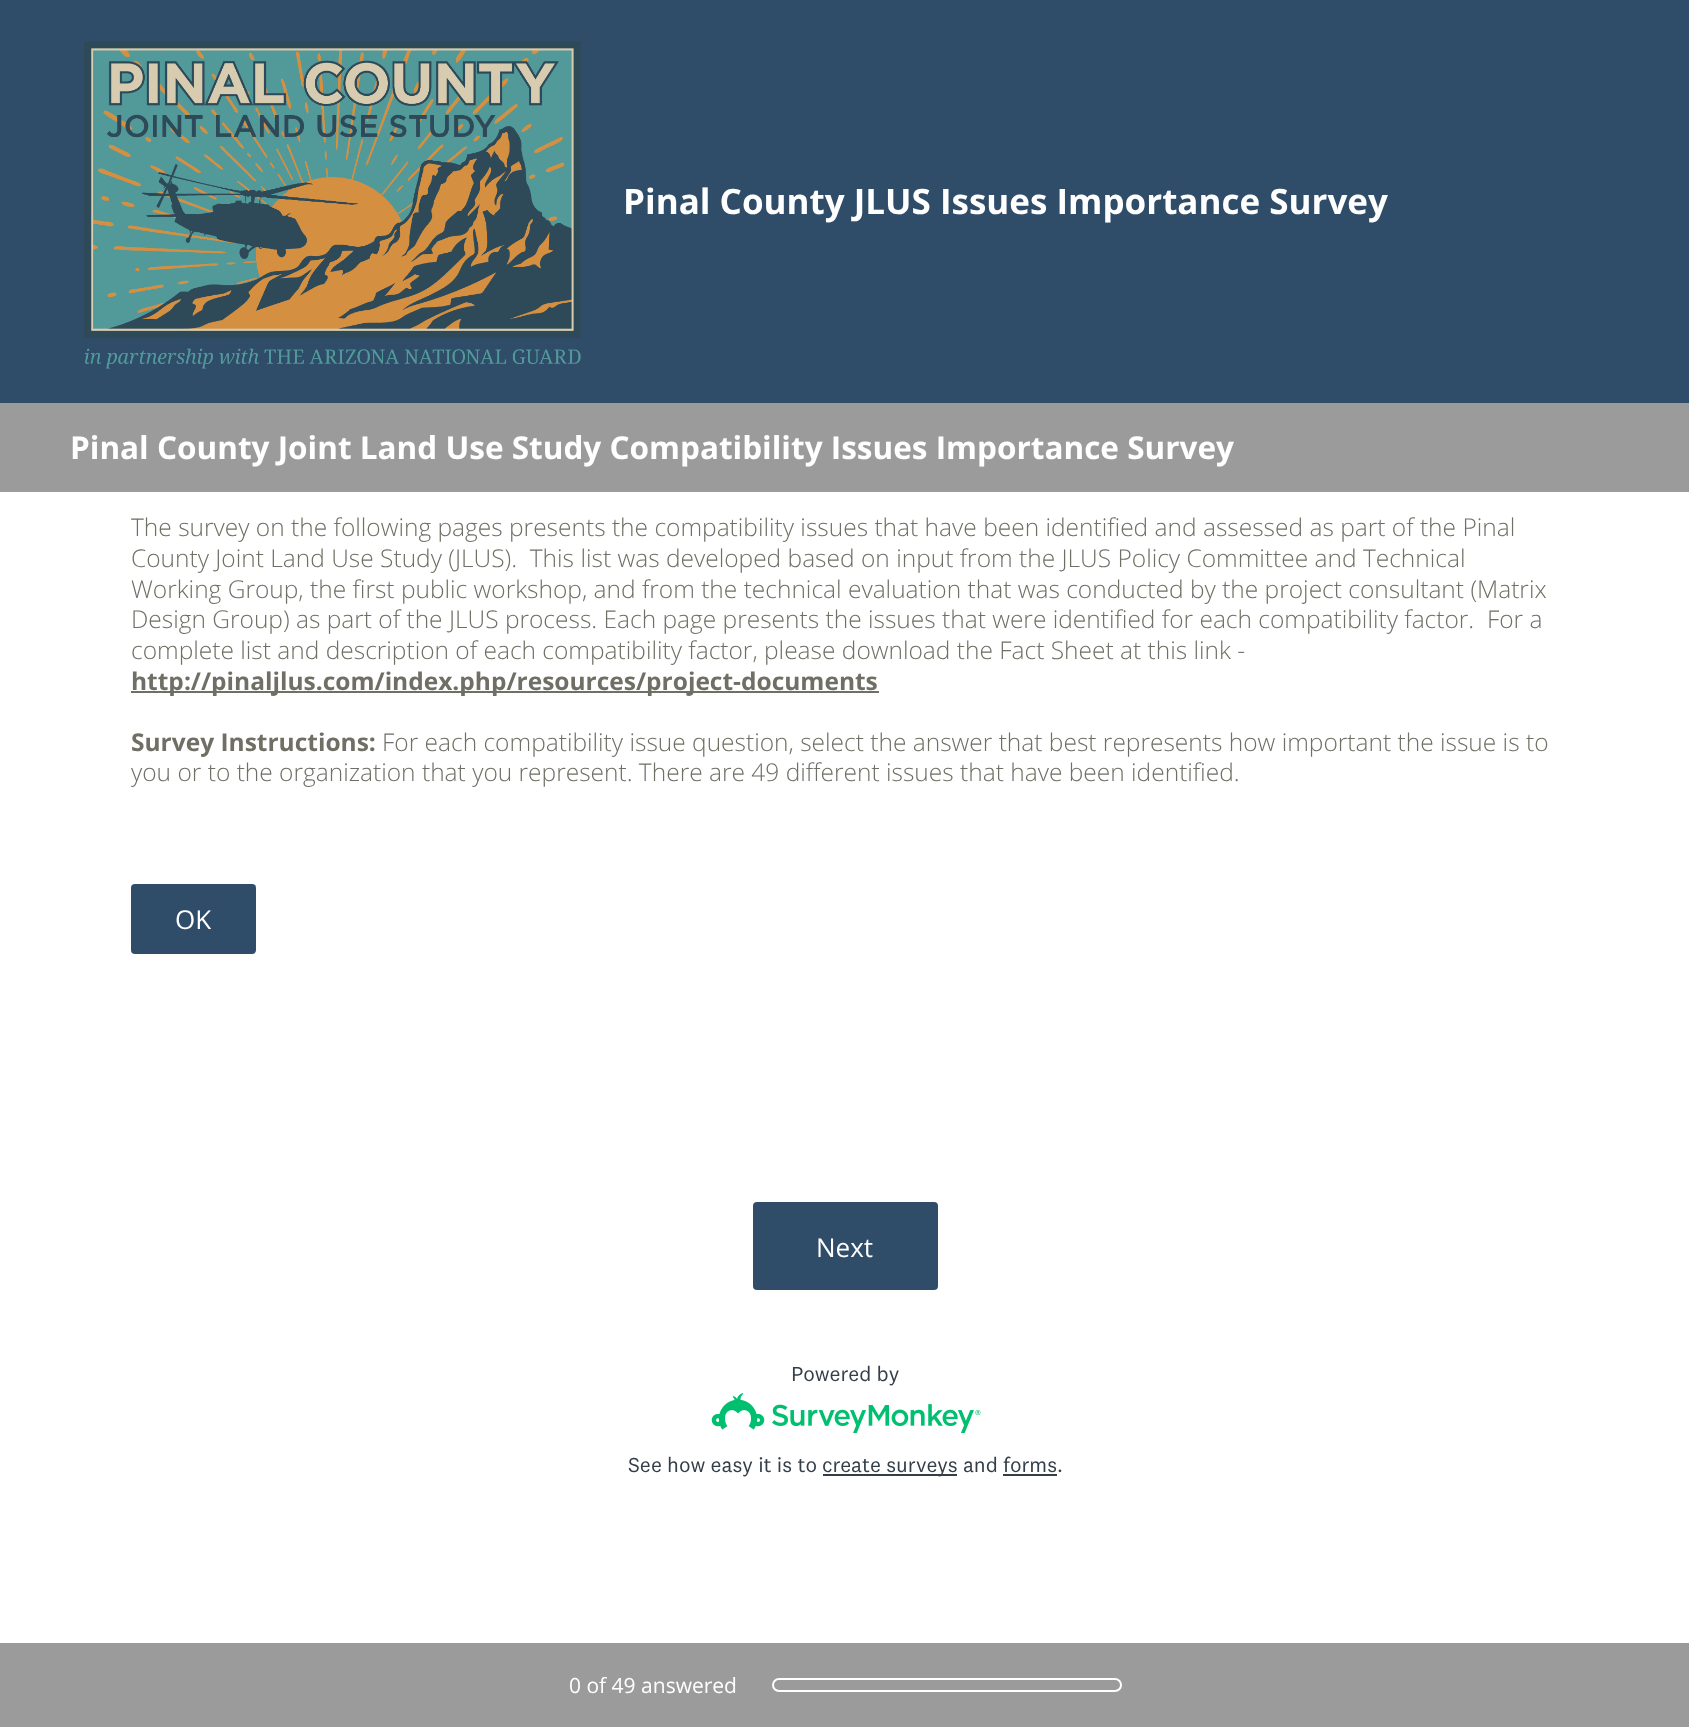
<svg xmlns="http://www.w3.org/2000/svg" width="1689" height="1727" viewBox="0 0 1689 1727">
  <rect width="100%" height="100%" fill="rgb(255,255,255)"/>
  <rect x="0" y="0" width="1689" height="403" fill="rgb(47,76,105)"/>
  <image x="84" y="41" width="497" height="328" href="pic1.png"/>
  <text x="623" y="214" font-family="Open Sans" font-size="35" font-weight="bold" fill="rgb(255,255,255)">Pinal County JLUS Issues Importance Survey</text>
  <rect x="0" y="403" width="1689" height="89" fill="rgb(155,155,155)"/>
  <text x="70" y="459" font-family="Open Sans" font-size="31.5" font-weight="bold" fill="rgb(255,255,255)">Pinal County Joint Land Use Study Compatibility Issues Importance Survey</text>
  <g font-family="Open Sans" font-size="24.5" font-weight="300" fill="rgb(112,111,101)">
    <text xml:space="preserve"><tspan x="131" y="536">The survey on the following pages presents the compatibility issues that have been identified and assessed as part of the Pinal</tspan><tspan x="131" y="567">County Joint Land Use Study (JLUS).  This list was developed based on input from the JLUS Policy Committee and Technical</tspan><tspan x="131" y="598">Working Group, the first public workshop, and from the technical evaluation that was conducted by the project consultant (Matrix</tspan><tspan x="131" y="628">Design Group) as part of the JLUS process. Each page presents the issues that were identified for each compatibility factor.  For a</tspan><tspan x="131" y="659">complete list and description of each compatibility factor, please download the Fact Sheet at this link -</tspan></text>
  </g>
  <rect x="131" y="691" width="748" height="2" fill="rgb(112,111,101)"/>
  <g font-family="Open Sans" font-size="24.5" font-weight="bold" fill="rgb(112,111,101)">
    <text x="131" y="690">http://pinaljlus.com/index.php/resources/project-documents</text>
    <text x="131" y="751">Survey Instructions:</text>
  </g>
  <g font-family="Open Sans" font-size="24.5" font-weight="300" fill="rgb(112,111,101)">
    <text x="382" y="751">For each compatibility issue question, select the answer that best represents how important the issue is to</text>
    <text x="131" y="781">you or to the organization that you represent. There are 49 different issues that have been identified.</text>
  </g>
  <rect x="131" y="884" width="125" height="70" rx="4" fill="rgb(47,76,105)"/>
  <text x="175" y="929" font-family="Open Sans" font-size="26" fill="rgb(255,255,255)">OK</text>
  <rect x="753" y="1202" width="185" height="88" rx="4" fill="rgb(47,76,105)"/>
  <text x="816" y="1257" font-family="Open Sans" font-size="26" fill="rgb(255,255,255)">Next</text>
  <rect x="0" y="1643" width="1689" height="84" fill="rgb(155,155,155)"/>
  <text x="569" y="1693" font-family="Open Sans" font-size="21" fill="rgb(255,255,255)">0 of 49 answered</text>
  <rect x="773" y="1679" width="348" height="12" rx="6" fill="none" stroke="rgb(255,255,255)" stroke-width="2"/>
  <text x="791" y="1381" font-family="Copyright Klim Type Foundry" font-size="21" fill="rgb(51,62,72)">Powered by</text>
  <image x="711" y="1393" width="270" height="40" href="pic2.png"/>
  <text x="628" y="1472" font-family="Copyright Klim Type Foundry" font-size="21" fill="rgb(51,62,72)">See how easy it is to</text>
  <rect x="823" y="1474" width="134" height="2" fill="rgb(51,62,72)"/>
  <text x="822" y="1472" font-family="Copyright Klim Type Foundry" font-size="21" fill="rgb(51,62,72)">create surveys and forms.</text>
  <rect x="1003" y="1474" width="54" height="2" fill="rgb(51,62,72)"/>
</svg>
